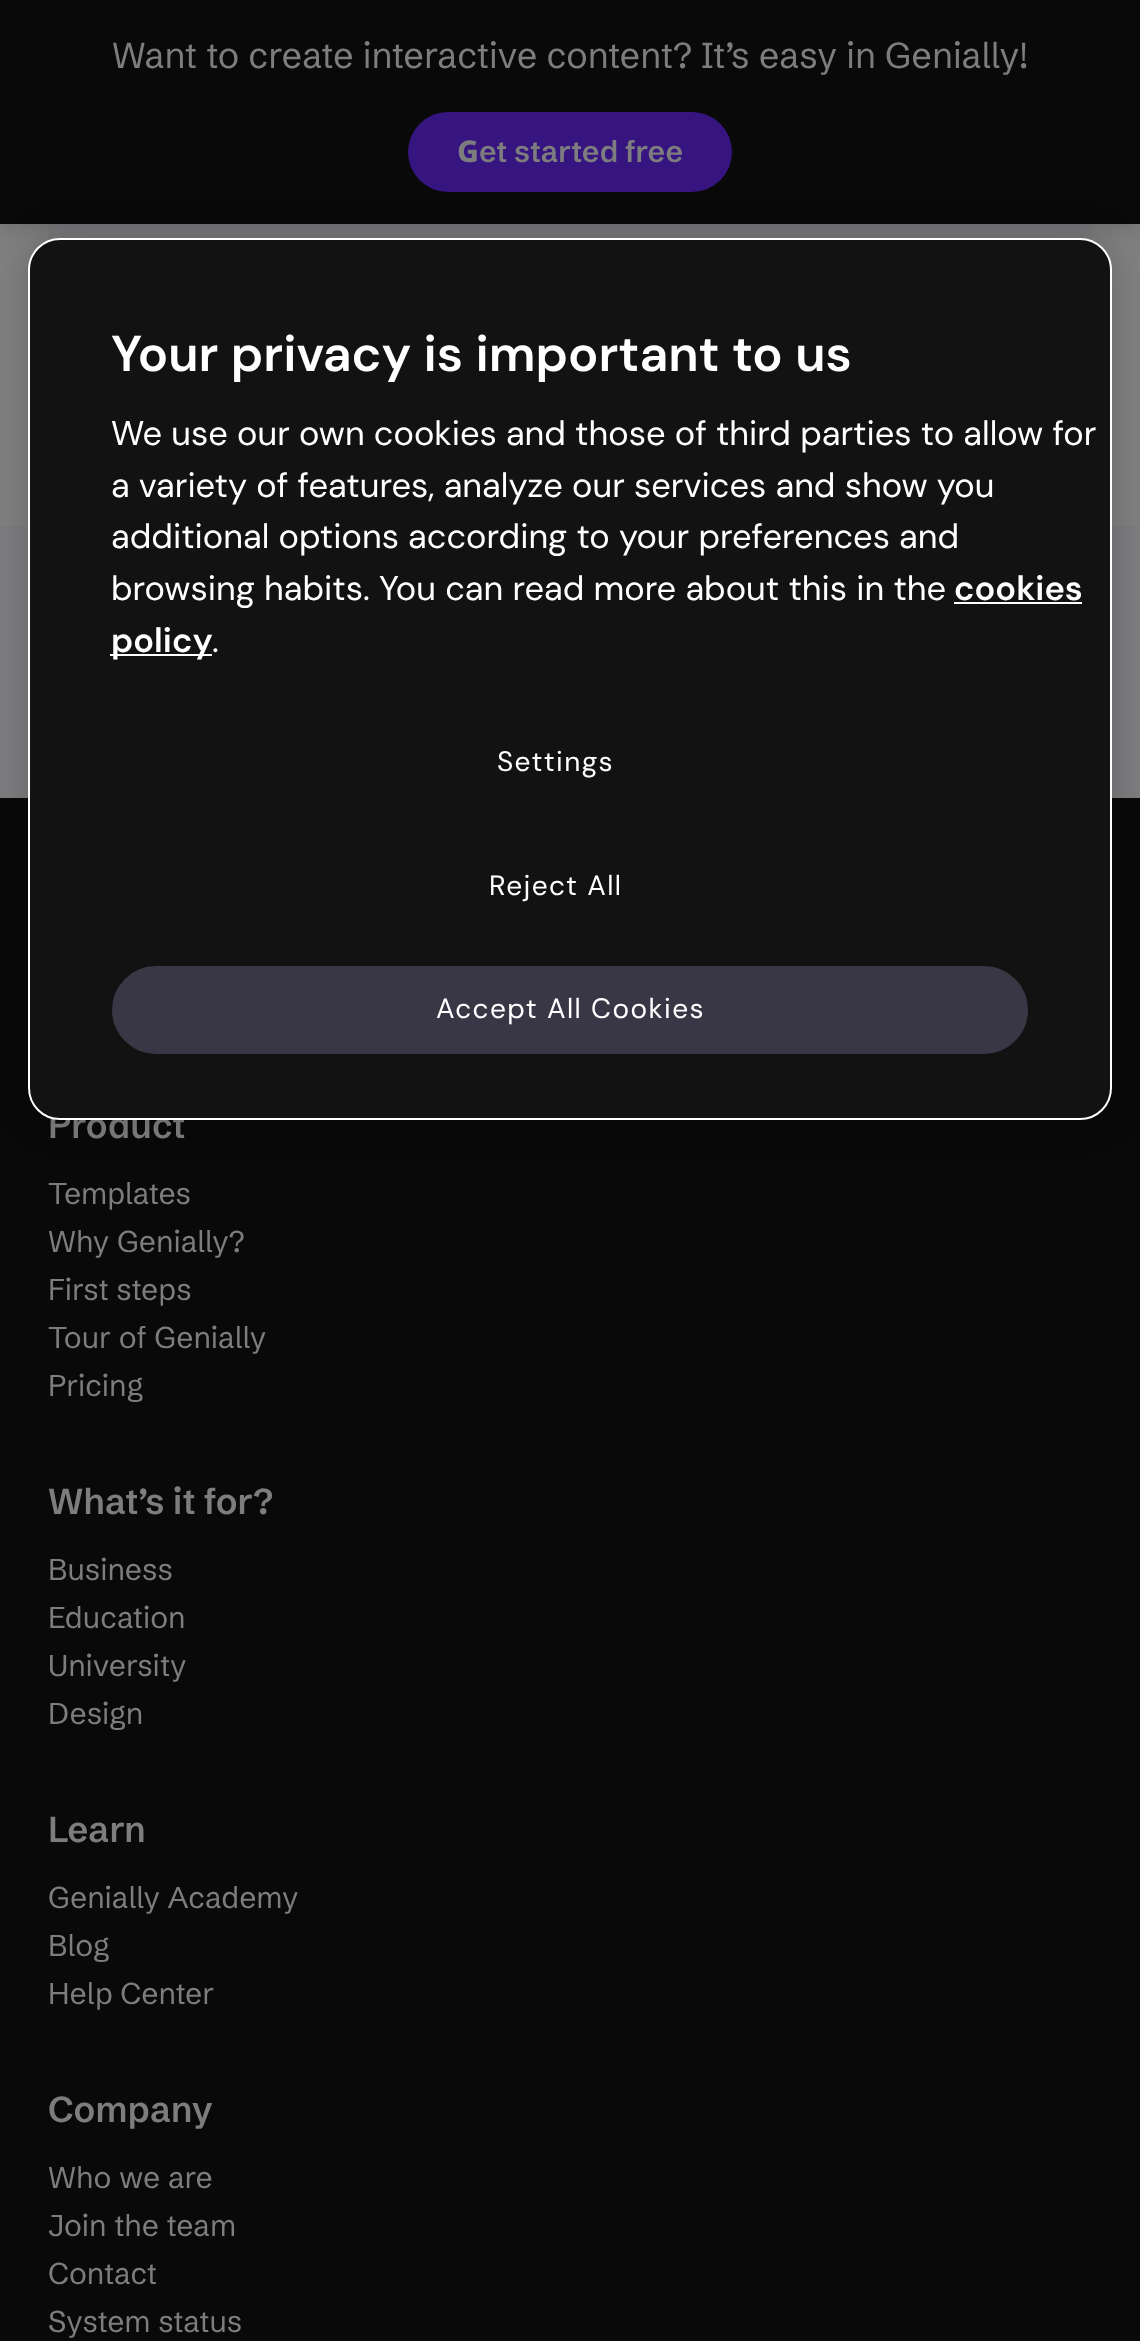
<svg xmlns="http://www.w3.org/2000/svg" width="1140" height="2341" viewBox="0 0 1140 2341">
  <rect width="100%" height="100%" fill="rgb(128,128,128)"/>
  <rect x="48" y="224" width="1044" height="17" fill="rgb(125,124,126)"/>
  <rect x="0" y="-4" width="1140" height="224" fill="rgba(9,9,9,0.3)" filter="blur(13px)"/>
  <rect x="0" y="0" width="1140" height="224" fill="rgb(9,9,9)"/>
  <text x="112" y="68" font-family="Schibsted Grotesk" font-size="36" fill="rgb(125,124,126)">Want to create interactive content? It’s easy in Genially!</text>
  <rect x="408" y="112" width="324" height="80" rx="40" fill="rgb(54,21,128)"/>
  <text x="457" y="162" font-family="Noto Sans" font-size="30" font-weight="800" fill="rgb(125,124,126)">G</text>
  <text x="479" y="162" font-family="Schibsted Grotesk" font-size="30" font-weight="600" fill="rgb(125,124,126)">et started free</text>
  <rect x="0" y="526" width="1140" height="272" fill="rgb(125,124,126)"/>
  <rect x="0" y="798" width="1140" height="1543" fill="rgb(9,9,9)"/>
  <text x="48" y="1138" font-family="Schibsted Grotesk" font-size="36" font-weight="600" fill="rgb(125,124,126)">Product</text>
  <g font-family="Schibsted Grotesk" font-size="30" fill="rgb(125,124,126)">
    <text>
      <tspan x="48" y="1204">Templates</tspan>
      <tspan x="48" y="1252">Why Genially?</tspan>
      <tspan x="48" y="1300">First steps</tspan>
      <tspan x="48" y="1348">Tour of Genially</tspan>
      <tspan x="48" y="1396">Pricing</tspan>
    </text>
  </g>
  <text x="48" y="1514" font-family="Schibsted Grotesk" font-size="36" font-weight="600" fill="rgb(125,124,126)">What’s it for?</text>
  <g font-family="Schibsted Grotesk" font-size="30" fill="rgb(125,124,126)">
    <text>
      <tspan x="48" y="1580">Business</tspan>
      <tspan x="48" y="1628">Education</tspan>
      <tspan x="48" y="1676">University</tspan>
      <tspan x="48" y="1724">Design</tspan>
    </text>
  </g>
  <text x="48" y="1842" font-family="Schibsted Grotesk" font-size="36" font-weight="600" fill="rgb(125,124,126)">Learn</text>
  <g font-family="Schibsted Grotesk" font-size="30" fill="rgb(125,124,126)">
    <text>
      <tspan x="48" y="1908">Genially Academy</tspan>
      <tspan x="48" y="1956">Blog</tspan>
      <tspan x="48" y="2004">Help Center</tspan>
    </text>
  </g>
  <text x="48" y="2122" font-family="Schibsted Grotesk" font-size="36" font-weight="600" fill="rgb(125,124,126)">Company</text>
  <g font-family="Schibsted Grotesk" font-size="30" fill="rgb(125,124,126)">
    <text>
      <tspan x="48" y="2188">Who we are</tspan>
      <tspan x="48" y="2236">Join the team</tspan>
      <tspan x="48" y="2284">Contact</tspan>
      <tspan x="48" y="2332">System status</tspan>
    </text>
  </g>
  <rect x="28" y="238" width="1084" height="882" rx="32" fill="rgba(0,0,0,0.2)" filter="blur(18px)"/>
  <rect x="29" y="239" width="1082" height="880" rx="31" fill="rgb(18,18,18)" stroke="rgb(255,255,255)" stroke-width="2"/>
  <text x="111" y="371" font-family="DM Sans" font-size="50.4" font-weight="600" fill="rgb(255,255,255)">Your privacy is important to us</text>
  <g font-family="DM Sans" font-size="34.45" fill="rgb(255,255,255)">
    <text>
      <tspan x="111" y="445">We use our own cookies and those of third parties to allow for</tspan>
      <tspan x="111" y="497">a variety of features, analyze our services and show you</tspan>
      <tspan x="111" y="548">additional options according to your preferences and</tspan>
      <tspan x="111" y="600">browsing habits. You can read more about this in the</tspan>
    </text>
  </g>
  <text x="954" y="600" font-family="DM Sans" font-size="34.45" font-weight="600" fill="rgb(255,255,255)">cookies</text>
  <rect x="954" y="602" width="128" height="2" fill="rgb(255,255,255)"/>
  <rect x="110" y="654" width="102" height="2" fill="rgb(255,255,255)"/>
  <text x="111" y="652" font-family="DM Sans" font-size="34.45" font-weight="600" fill="rgb(255,255,255)">policy</text>
  <text x="212" y="652" font-family="DM Sans" font-size="34.45" fill="rgb(255,255,255)">.</text>
  <g font-family="DM Sans" font-size="28" letter-spacing="1.4" fill="rgb(255,255,255)">
    <text x="497" y="771">Settings</text>
    <text x="489" y="895">Reject All</text>
  </g>
  <rect x="111" y="965" width="918" height="90" rx="45" fill="rgb(57,54,69)" stroke="rgb(18,18,18)" stroke-width="2"/>
  <text x="436" y="1018" font-family="DM Sans" font-size="28" letter-spacing="1.4" fill="rgb(255,255,255)">Accept All Cookies</text>
</svg>
